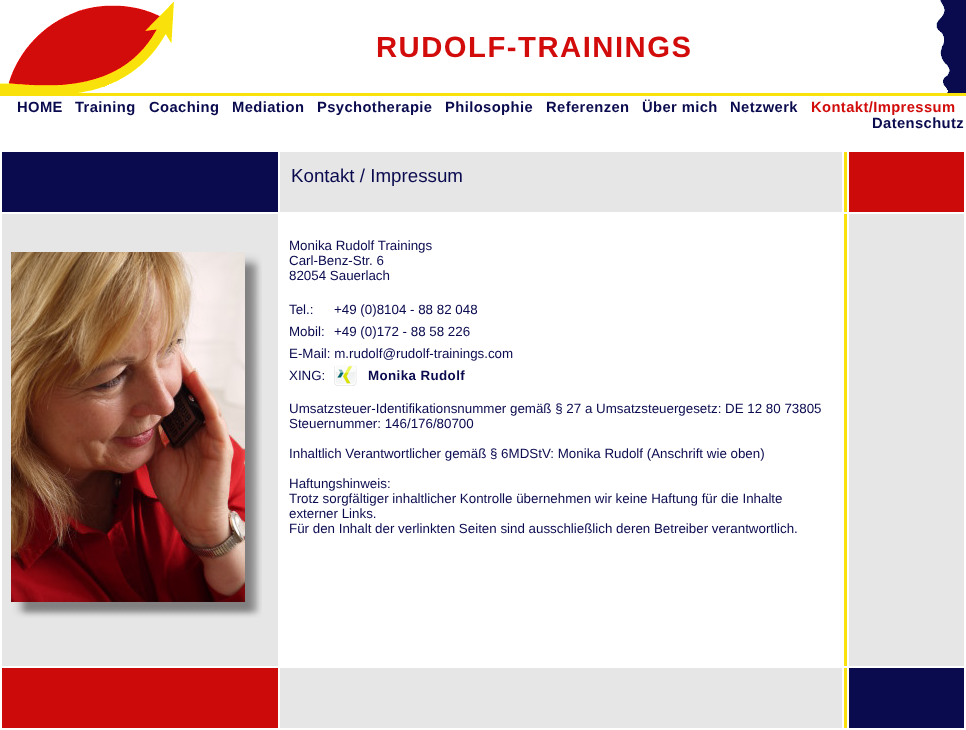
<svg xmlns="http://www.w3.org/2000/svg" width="966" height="730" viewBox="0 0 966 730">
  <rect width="100%" height="100%" fill="rgb(255,255,255)"/>
  <image x="0" y="2" width="174" height="91" href="pic1.png"/>
  <text x="376" y="57" font-family="Liberation Sans" font-size="29.25" font-weight="bold" letter-spacing="1.5" fill="rgb(210,11,11)">RUDOLF-TRAININGS</text>
  <image x="936" y="0" width="30" height="93" href="pic2.png"/>
  <rect x="0" y="93" width="966" height="3" fill="rgb(249,225,11)"/>
  <g font-family="Liberation Sans" font-size="14.75" font-weight="bold" letter-spacing="0.4" fill="rgb(10,10,79)">
    <text x="17" y="112">HOME</text>
    <text x="75" y="112">Training</text>
    <text x="149" y="112">Coaching</text>
    <text x="232" y="112">Mediation</text>
    <text x="317" y="112">Psychotherapie</text>
    <text x="445" y="112">Philosophie</text>
    <text x="546" y="112">Referenzen</text>
    <text x="642" y="112">Über mich</text>
    <text x="730" y="112">Netzwerk</text>
  </g>
  <text x="811" y="112" font-family="Liberation Sans" font-size="14.75" font-weight="bold" letter-spacing="0.4" fill="rgb(210,11,11)">Kontakt/Impressum</text>
  <text x="872" y="128" font-family="Liberation Sans" font-size="14.75" font-weight="bold" letter-spacing="0.4" fill="rgb(10,10,79)">Datenschutz</text>
  <rect x="2" y="152" width="276" height="60" fill="rgb(10,10,79)"/>
  <rect x="280" y="152" width="562" height="60" fill="rgb(230,230,230)"/>
  <text x="291" y="182" font-family="Liberation Sans" font-size="18.75" fill="rgb(10,10,79)">Kontakt / Impressum</text>
  <rect x="844" y="152" width="3" height="60" fill="rgb(249,225,11)"/>
  <rect x="849" y="152" width="115" height="60" fill="rgb(204,10,10)"/>
  <rect x="2" y="214" width="276" height="452" fill="rgb(230,230,230)"/>
  <image x="11" y="252" width="251" height="366" href="pic3.png"/>
  <g font-family="Liberation Sans" font-size="13.35" fill="rgb(10,10,79)">
    <text>
      <tspan x="289" y="250">Monika Rudolf Trainings</tspan>
      <tspan x="289" y="265">Carl-Benz-Str. 6</tspan>
      <tspan x="289" y="280">82054 Sauerlach</tspan>
    </text>
    <text x="289" y="314">Tel.:</text>
    <text x="334" y="314">+49 (0)8104 - 88 82 048</text>
    <text x="289" y="336">Mobil:</text>
    <text x="334" y="336">+49 (0)172 - 88 58 226</text>
    <text>
      <tspan x="289" y="358">E-Mail: m.rudolf@rudolf-trainings.com</tspan>
      <tspan x="289" y="380">XING:</tspan>
    </text>
  </g>
  <image x="334" y="365" width="23" height="21" href="pic4.png"/>
  <text x="368" y="380" font-family="Liberation Sans" font-size="13.35" font-weight="bold" letter-spacing="0.4" fill="rgb(10,10,79)">Monika Rudolf</text>
  <g font-family="Liberation Sans" font-size="13.35" fill="rgb(10,10,79)">
    <text>
      <tspan x="289" y="413">Umsatzsteuer-Identifikationsnummer gemäß § 27 a Umsatzsteuergesetz: DE 12 80 73805</tspan>
      <tspan x="289" y="428">Steuernummer: 146/176/80700</tspan>
    </text>
    <text x="289" y="458">Inhaltlich Verantwortlicher gemäß § 6MDStV: Monika Rudolf (Anschrift wie oben)</text>
    <text>
      <tspan x="289" y="488">Haftungshinweis:</tspan>
      <tspan x="289" y="503">Trotz sorgfältiger inhaltlicher Kontrolle übernehmen wir keine Haftung für die Inhalte</tspan>
      <tspan x="289" y="518">externer Links.</tspan>
      <tspan x="289" y="533">Für den Inhalt der verlinkten Seiten sind ausschließlich deren Betreiber verantwortlich.</tspan>
    </text>
  </g>
  <rect x="844" y="214" width="3" height="452" fill="rgb(249,225,11)"/>
  <rect x="849" y="214" width="115" height="452" fill="rgb(230,230,230)"/>
  <rect x="2" y="668" width="276" height="60" fill="rgb(204,10,10)"/>
  <rect x="280" y="668" width="562" height="60" fill="rgb(230,230,230)"/>
  <rect x="844" y="668" width="3" height="60" fill="rgb(249,225,11)"/>
  <rect x="849" y="668" width="115" height="60" fill="rgb(10,10,79)"/>
</svg>
